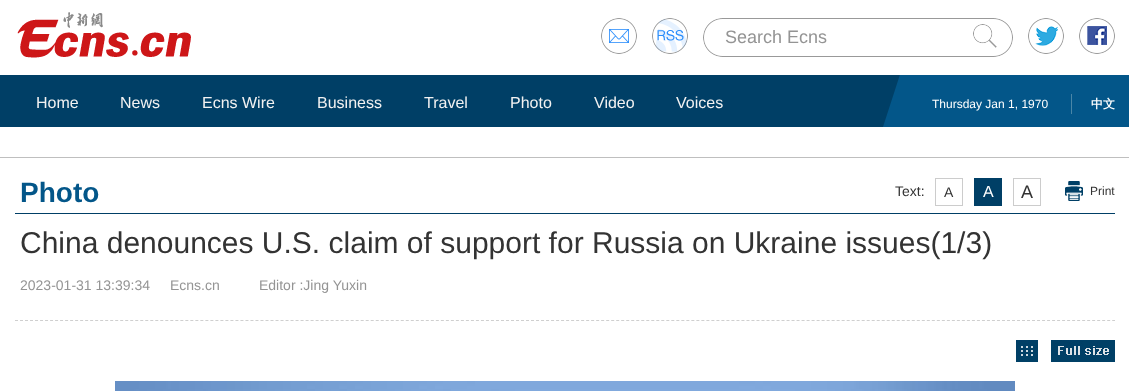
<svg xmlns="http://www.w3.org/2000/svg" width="1129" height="391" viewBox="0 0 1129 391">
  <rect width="100%" height="100%" fill="rgb(255,255,255)"/>
  <image x="17" y="12" width="174" height="46" href="pic1.png"/>
  <image x="601" y="18" width="36" height="36" href="pic2.png"/>
  <image x="652" y="18" width="36" height="36" href="pic3.png"/>
  <image x="703" y="18" width="310" height="39" href="pic4.png"/>
  <text x="725" y="43" font-family="Liberation Sans" font-size="18" fill="rgb(148,148,148)">Search Ecns</text>
  <image x="973" y="24" width="24" height="24" href="pic5.png"/>
  <image x="1028" y="18" width="36" height="36" href="pic6.png"/>
  <image x="1079" y="18" width="36" height="36" href="pic7.png"/>
  <rect x="0" y="75" width="882" height="52" fill="rgb(0,63,102)"/>
  <g font-family="Liberation Sans" font-size="16" fill="rgb(242,242,242)">
    <text x="36" y="108">Home</text>
    <text x="120" y="108">News</text>
    <text x="202" y="108">Ecns Wire</text>
    <text x="317" y="108">Business</text>
    <text x="424" y="108">Travel</text>
    <text x="510" y="108">Photo</text>
    <text x="594" y="108">Video</text>
    <text x="676" y="108">Voices</text>
  </g>
  <rect x="900" y="75" width="229" height="52" fill="rgb(3,86,137)"/>
  <image x="882" y="75" width="18" height="52" href="pic8.png"/>
  <text x="932" y="108" font-family="Liberation Sans" font-size="12" fill="rgb(255,255,255)">Thursday Jan 1, 1970</text>
  <rect x="1071" y="94" width="1" height="20" fill="rgb(74,134,167)"/>
  <text x="1091" y="108" font-family="WenQuanYi Zen Hei" font-size="12" font-weight="bold" fill="rgb(255,255,255)">中文</text>
  <rect x="0" y="157" width="1129" height="1" fill="rgb(191,191,191)"/>
  <rect x="15" y="213" width="1100" height="1" fill="rgb(0,63,102)"/>
  <text x="20" y="202" font-family="Liberation Sans" font-size="28" font-weight="bold" fill="rgb(3,86,137)">Photo</text>
  <text x="895" y="196" font-family="Liberation Sans" font-size="14" fill="rgb(51,51,51)">Text:</text>
  <rect x="935.5" y="178.5" width="27" height="27" fill="none" stroke="rgb(204,204,204)"/>
  <text x="944" y="197" font-family="Liberation Sans" font-size="14" fill="rgb(51,51,51)">A</text>
  <rect x="974" y="178" width="28" height="28" fill="rgb(0,63,102)"/>
  <text x="983" y="197" font-family="Liberation Sans" font-size="16" fill="rgb(255,255,255)">A</text>
  <rect x="1013.5" y="178.5" width="27" height="27" fill="none" stroke="rgb(204,204,204)"/>
  <text x="1021" y="198" font-family="Liberation Sans" font-size="18" fill="rgb(51,51,51)">A</text>
  <image x="1065" y="181" width="18" height="20" href="pic9.png"/>
  <text x="1090" y="195" font-family="Liberation Sans" font-size="12" fill="rgb(51,51,51)">Print</text>
  <text x="20" y="253" font-family="Liberation Sans" font-size="30" fill="rgb(51,51,51)">China denounces U.S. claim of support for Russia on Ukraine issues(1/3)</text>
  <path d="M15 320.5H1115" fill="none" stroke="rgb(207,207,207)" stroke-dasharray="3 2.01"/>
  <g font-family="Liberation Sans" font-size="14" fill="rgb(148,148,148)">
    <text x="20" y="290">2023-01-31 13:39:34</text>
    <text x="170" y="290">Ecns.cn</text>
    <text x="259" y="290">Editor :Jing Yuxin</text>
  </g>
  <image x="1016" y="340" width="22" height="22" href="pic10.png"/>
  <image x="1051" y="340" width="64" height="22" href="pic11.png"/>
  <image x="115" y="381" width="900" height="10" href="pic12.png"/>
</svg>
